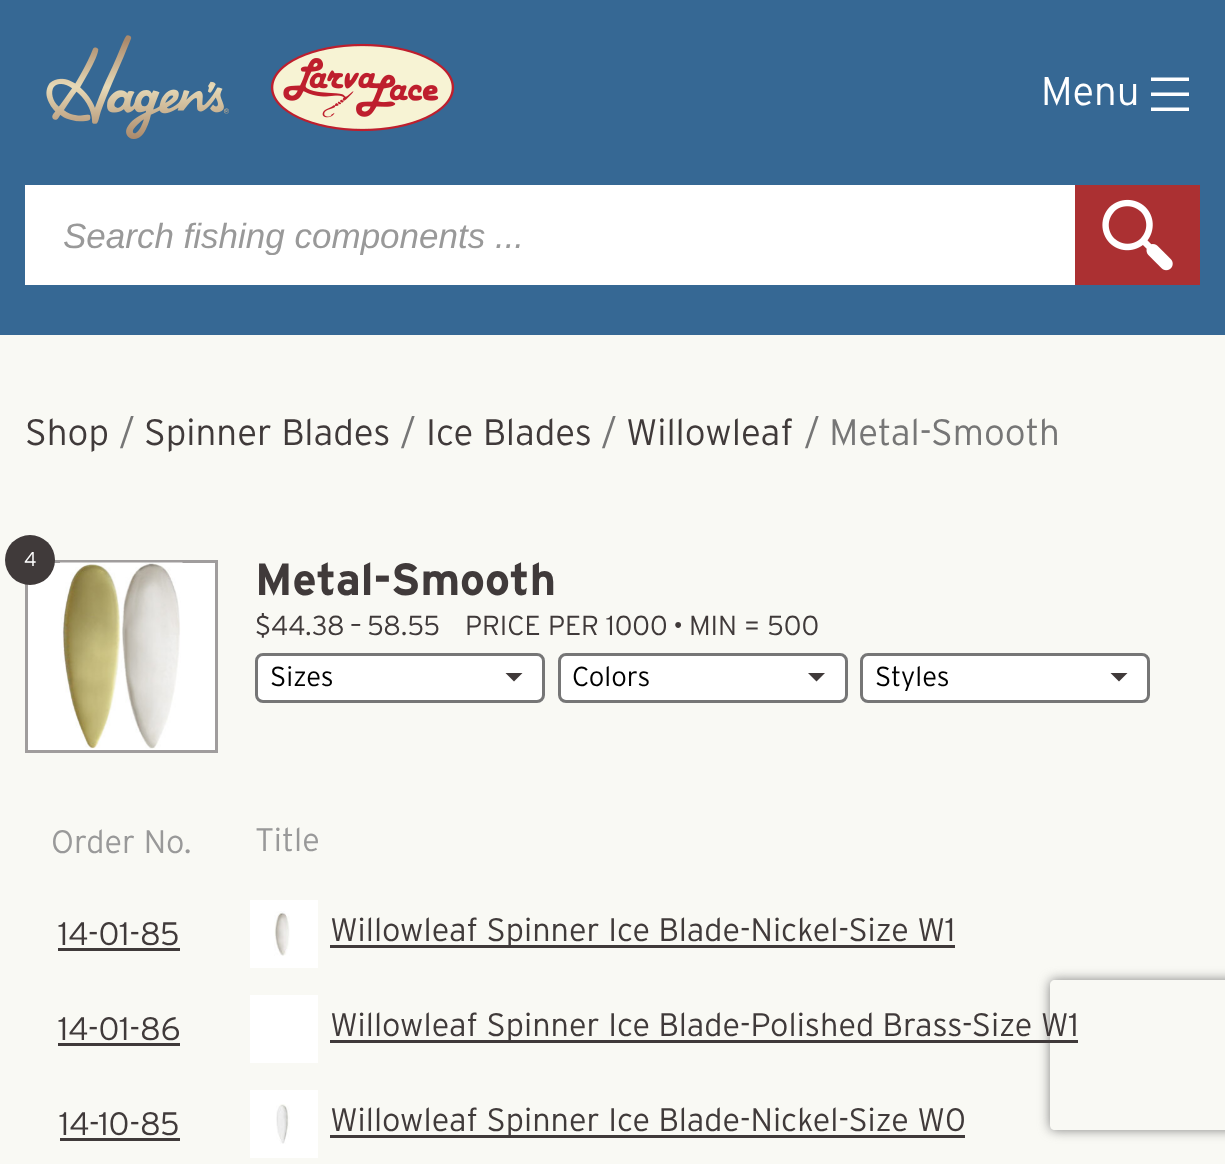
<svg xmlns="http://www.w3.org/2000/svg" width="1225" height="1164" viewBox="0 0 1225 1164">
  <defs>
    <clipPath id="clip1"><rect x="63" y="215" width="1100" height="40"/></clipPath>
    <clipPath id="clip2"><rect x="505" y="673" width="18" height="17"/></clipPath>
    <clipPath id="clip3"><rect x="808" y="673" width="17" height="17"/></clipPath>
    <clipPath id="clip4"><rect x="1110" y="673" width="18" height="17"/></clipPath>
    <clipPath id="clip5"><path d="M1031 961H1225V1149H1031ZM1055 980H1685C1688 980 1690 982 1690 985V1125C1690 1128 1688 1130 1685 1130H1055C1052 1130 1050 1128 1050 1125V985C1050 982 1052 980 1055 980Z" clip-rule="evenodd"/></clipPath>
  </defs>
  <rect width="100%" height="100%" fill="rgb(54,104,148)"/>
  <image x="46" y="35" width="183" height="104" href="pic1.png"/>
  <image x="270" y="43" width="185" height="89" href="pic2.png"/>
  <text x="1041" y="105" font-family="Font" font-size="40" font-weight="300" fill="rgb(255,255,255)">Menu</text>
  <path d="M1151 77.5H1189V81H1151ZM1151 92.5H1189V96H1151ZM1189 107.5H1151V111H1189Z" fill="rgb(255,255,255)" fill-rule="evenodd"/>
  <rect x="25" y="185" width="1050" height="100" fill="rgb(255,255,255)"/>
  <g clip-path="url(#clip1)">
    <text x="63" y="248" font-family="Liberation Sans" font-size="35" font-style="italic" fill="rgb(153,153,153)">Search fishing components ...</text>
  </g>
  <rect x="1075" y="185" width="125" height="100" fill="rgb(171,48,50)"/>
  <image x="1102" y="199" width="71" height="72" href="pic3.png"/>
  <rect x="0" y="335" width="1225" height="829" fill="rgb(249,249,244)"/>
  <text x="25" y="445" font-family="Font" font-size="36.75" font-weight="300" fill="rgb(64,58,58)">Shop</text>
  <text x="119" y="445" font-family="Font" font-size="36.75" font-weight="300" fill="rgb(118,118,118)">/</text>
  <text x="144" y="445" font-family="Font" font-size="36.75" font-weight="300" fill="rgb(64,58,58)">Spinner Blades</text>
  <text x="400" y="445" font-family="Font" font-size="36.75" font-weight="300" fill="rgb(118,118,118)">/</text>
  <text x="426" y="445" font-family="Font" font-size="36.75" font-weight="300" fill="rgb(64,58,58)">Ice Blades</text>
  <text x="601" y="445" font-family="Font" font-size="36.75" font-weight="300" fill="rgb(118,118,118)">/</text>
  <text x="626" y="445" font-family="Font" font-size="36.75" font-weight="300" fill="rgb(64,58,58)">Willowleaf</text>
  <text x="804" y="445" font-family="Font" font-size="36.75" font-weight="300" fill="rgb(118,118,118)">/ Metal-Smooth</text>
  <rect x="26.5" y="561.5" width="190" height="190" fill="rgb(255,255,255)" stroke="rgb(160,157,157)" stroke-width="3"/>
  <circle cx="30" cy="560" r="25" fill="rgb(64,58,58)"/>
  <text x="24" y="566" font-family="Font" font-size="20" font-weight="300" fill="rgb(255,255,255)">4</text>
  <text x="255" y="595" font-family="Font" font-size="45" font-weight="bold" fill="rgb(64,58,58)">Metal-Smooth</text>
  <g font-family="Font" font-size="27.5" font-weight="300" fill="rgb(64,58,58)">
    <text x="255" y="635">$44.38 – 58.55</text>
    <text x="465" y="635">PRICE PER 1000 • MIN = 500</text>
  </g>
  <rect x="255" y="653" width="290" height="50" rx="8" fill="rgb(255,255,255)"/>
  <g clip-path="url(#clip2)">
    <path d="M505 672.5H523L514 681.5Z" fill="rgb(64,58,58)"/>
  </g>
  <rect x="256.5" y="654.5" width="287" height="47" rx="6.5" fill="none" stroke="rgb(118,118,118)" stroke-width="3"/>
  <text x="270" y="686" font-family="Font" font-size="27.5" font-weight="300" fill="rgb(0,0,0)">Sizes</text>
  <rect x="558" y="653" width="290" height="50" rx="8" fill="rgb(255,255,255)"/>
  <g clip-path="url(#clip3)">
    <path d="M807.5 672.5H825.5L816.5 681.5Z" fill="rgb(64,58,58)"/>
  </g>
  <rect x="559.5" y="654.5" width="287" height="47" rx="6.5" fill="none" stroke="rgb(118,118,118)" stroke-width="3"/>
  <text x="572" y="686" font-family="Font" font-size="27.5" font-weight="300" fill="rgb(0,0,0)">Colors</text>
  <rect x="860" y="653" width="290" height="50" rx="8" fill="rgb(255,255,255)"/>
  <g clip-path="url(#clip4)">
    <path d="M1110 672.5H1128L1119 681.5Z" fill="rgb(64,58,58)"/>
  </g>
  <rect x="861.5" y="654.5" width="287" height="47" rx="6.5" fill="none" stroke="rgb(118,118,118)" stroke-width="3"/>
  <text x="875" y="686" font-family="Font" font-size="27.5" font-weight="300" fill="rgb(0,0,0)">Styles</text>
  <image x="60" y="562" width="123" height="187" href="pic4.png"/>
  <g font-family="Font" font-size="32.5" font-weight="300" fill="rgb(153,153,153)">
    <text x="51" y="853">Order No.</text>
    <text x="255" y="851">Title</text>
  </g>
  <text x="58" y="945" font-family="Font" font-size="32.5" font-weight="300" fill="rgb(64,58,58)">14-01-85</text>
  <rect x="58" y="948" width="122" height="3" fill="rgb(64,58,58)"/>
  <rect x="250" y="900" width="68" height="68" fill="rgb(255,255,255)"/>
  <image x="274" y="911" width="16" height="45" href="pic5.png"/>
  <rect x="330" y="945" width="625" height="3" fill="rgb(64,58,58)"/>
  <g font-family="Font" font-size="32.5" font-weight="300" fill="rgb(64,58,58)">
    <text x="330" y="941">Willowleaf Spinner Ice Blade-Nickel-Size W1</text>
    <text x="58" y="1040">14-01-86</text>
  </g>
  <rect x="58" y="1043" width="122" height="3" fill="rgb(64,58,58)"/>
  <rect x="250" y="995" width="68" height="68" fill="rgb(255,255,255)"/>
  <g clip-path="url(#clip5)">
    <rect x="1050" y="980" width="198" height="150" rx="5" fill="rgb(128,128,128)" filter="blur(6px)"/>
  </g>
  <rect x="330" y="1040" width="748" height="3" fill="rgb(64,58,58)"/>
  <g font-family="Font" font-size="32.5" font-weight="300" fill="rgb(64,58,58)">
    <text x="330" y="1036">Willowleaf Spinner Ice Blade-Polished Brass-Size W1</text>
    <text x="59" y="1135">14-10-85</text>
  </g>
  <rect x="60" y="1138" width="120" height="3" fill="rgb(64,58,58)"/>
  <rect x="250" y="1090" width="68" height="68" fill="rgb(255,255,255)"/>
  <image x="276" y="1104" width="14" height="40" href="pic6.png"/>
  <rect x="330" y="1135" width="635" height="3" fill="rgb(64,58,58)"/>
  <text x="330" y="1131" font-family="Font" font-size="32.5" font-weight="300" fill="rgb(64,58,58)">Willowleaf Spinner Ice Blade-Nickel-Size W0</text>
</svg>
